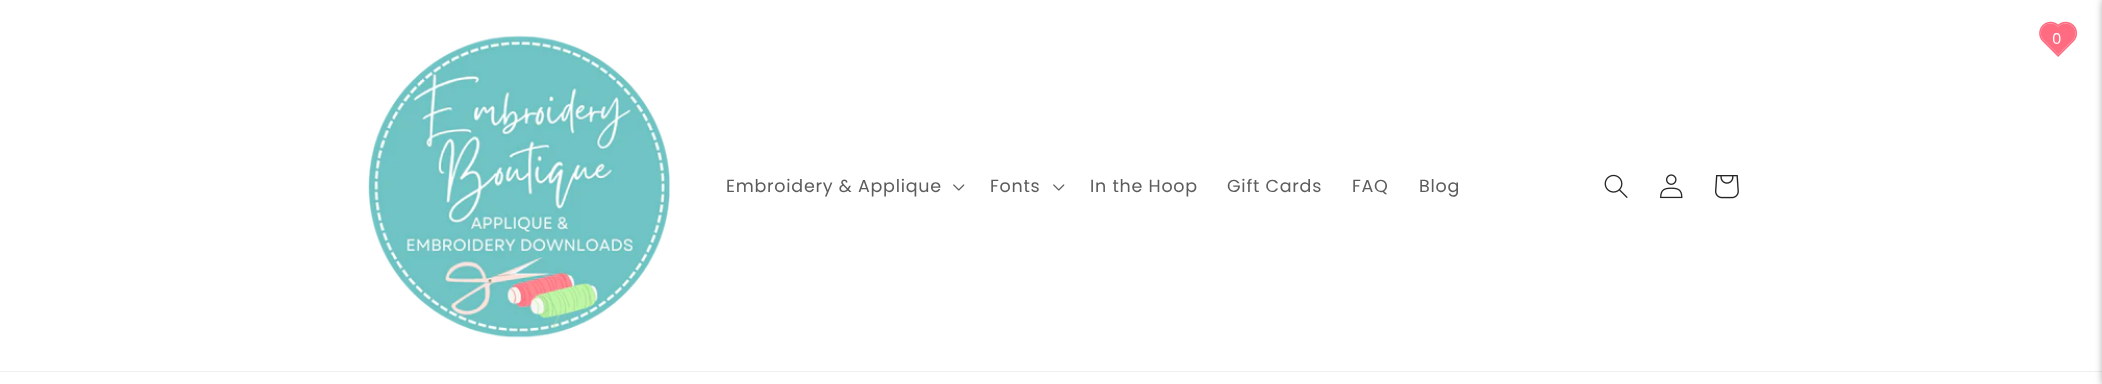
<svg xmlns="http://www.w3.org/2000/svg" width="2102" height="384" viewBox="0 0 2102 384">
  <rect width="100%" height="100%" fill="rgb(255,255,255)"/>
  <image x="2039" y="21" width="39" height="36" href="pic1.png"/>
  <text x="2052" y="44" font-family="Poppins" font-size="15" letter-spacing="0.75" fill="rgb(255,255,255)">0</text>
  <rect x="0" y="371" width="2102" height="1" fill="rgb(238,238,238)"/>
  <rect x="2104" y="0" width="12" height="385" fill="rgba(0,0,0,0.5)" filter="blur(4.5px)"/>
  <image x="368" y="35" width="302" height="303" href="pic2.png"/>
  <text x="726" y="192" font-family="Poppins" font-size="17.5" letter-spacing="0.75" fill="rgb(92,92,92)">Embroidery &amp; Applique</text>
  <image x="953" y="184" width="12" height="7" href="pic3.png"/>
  <text x="990" y="192" font-family="Poppins" font-size="17.5" letter-spacing="0.75" fill="rgb(92,92,92)">Fonts</text>
  <image x="1053" y="184" width="12" height="7" href="pic3.png"/>
  <g font-family="Poppins" font-size="17.5" letter-spacing="0.75" fill="rgb(92,92,92)">
    <text x="1090" y="192">In the Hoop</text>
    <text x="1227" y="192">Gift Cards</text>
    <text x="1352" y="192">FAQ</text>
    <text x="1419" y="192">Blog</text>
  </g>
  <image x="1604" y="174" width="24" height="24" href="pic4.png"/>
  <image x="1660" y="174" width="23" height="25" href="pic5.png"/>
  <image x="1715" y="175" width="24" height="24" href="pic6.png"/>
</svg>
